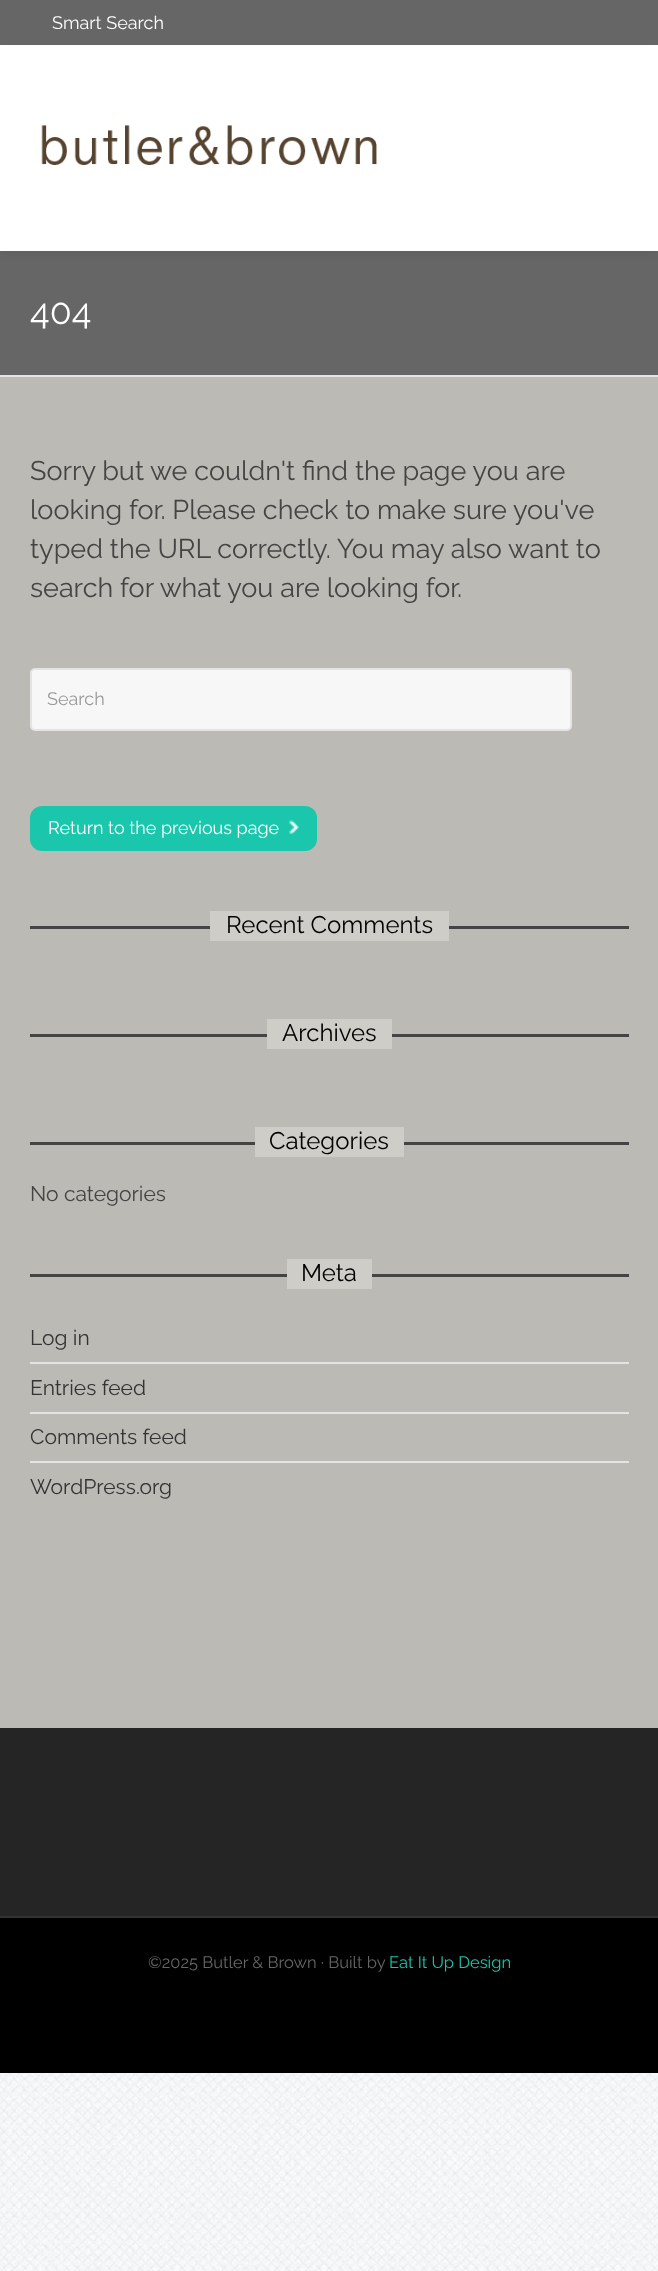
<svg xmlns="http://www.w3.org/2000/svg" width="658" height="2271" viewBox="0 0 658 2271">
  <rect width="100%" height="100%" fill="rgb(255,255,255)"/>
  <image x="0" y="2073" width="658" height="198" href="pic1.png"/>
  <rect x="0" y="251" width="658" height="124" fill="rgb(102,102,102)"/>
  <rect x="0" y="50" width="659" height="205" fill="rgba(0,0,0,0.05)" filter="blur(4px)"/>
  <rect x="0" y="0" width="658" height="45" fill="rgb(102,102,102)"/>
  <text x="52" y="29" font-family="Raleway" font-size="18" font-weight="100" fill="rgb(255,255,255)">Smart Search</text>
  <rect x="0" y="47" width="658" height="204" fill="rgb(255,255,255)"/>
  <image x="41" y="125" width="336" height="40" href="pic2.png"/>
  <rect x="0" y="377" width="658" height="1351" fill="rgb(188,186,180)"/>
  <rect x="0" y="375" width="658" height="2" fill="rgb(228,228,228)"/>
  <text x="30" y="324" font-family="Raleway" font-size="36" font-weight="100" fill="rgb(255,255,255)">404</text>
  <g font-family="Raleway" font-size="27" font-weight="100" fill="rgb(68,68,68)">
    <text>
      <tspan x="30" y="480">Sorry but we couldn't find the page you are</tspan>
      <tspan x="30" y="519">looking for. Please check to make sure you've</tspan>
      <tspan x="30" y="558">typed the URL correctly. You may also want to</tspan>
      <tspan x="30" y="597">search for what you are looking for.</tspan>
    </text>
  </g>
  <rect x="31" y="669" width="540" height="61" rx="4" fill="rgb(247,247,247)" stroke="rgb(228,228,228)" stroke-width="2"/>
  <text x="47" y="705" font-family="Raleway" font-size="18" font-weight="100" fill="rgb(153,153,153)">Search</text>
  <rect x="30" y="806" width="287" height="45" rx="12" fill="rgb(26,199,173)"/>
  <text x="48" y="834" font-family="Raleway" font-size="18" font-weight="100" fill="rgb(255,255,255)">Return to the previous page</text>
  <image x="289" y="820" width="10" height="14" href="pic3.png"/>
  <rect x="30" y="926" width="599" height="3" fill="rgb(68,68,68)"/>
  <rect x="210" y="911" width="239" height="30" fill="rgb(207,205,199)"/>
  <text x="226" y="933" font-family="Raleway" font-size="24" font-weight="100" fill="rgb(0,0,0)">Recent Comments</text>
  <rect x="30" y="1034" width="599" height="3" fill="rgb(68,68,68)"/>
  <rect x="267" y="1019" width="125" height="30" fill="rgb(207,205,199)"/>
  <text x="282" y="1041" font-family="Raleway" font-size="24" font-weight="100" fill="rgb(0,0,0)">Archives</text>
  <rect x="30" y="1142" width="599" height="3" fill="rgb(68,68,68)"/>
  <rect x="255" y="1127" width="149" height="30" fill="rgb(207,205,199)"/>
  <text x="269" y="1149" font-family="Raleway" font-size="24" font-weight="100" fill="rgb(0,0,0)">Categories</text>
  <text x="30" y="1201" font-family="Raleway" font-size="21" font-weight="100" fill="rgb(68,68,68)">No categories</text>
  <rect x="30" y="1274" width="599" height="3" fill="rgb(68,68,68)"/>
  <rect x="287" y="1259" width="85" height="30" fill="rgb(207,205,199)"/>
  <text x="301" y="1281" font-family="Raleway" font-size="24" font-weight="100" fill="rgb(0,0,0)">Meta</text>
  <text x="30" y="1345" font-family="Raleway" font-size="21" font-weight="100" fill="rgb(51,51,51)">Log in</text>
  <rect x="30" y="1362" width="599" height="2" fill="rgb(228,228,228)"/>
  <text x="30" y="1395" font-family="Raleway" font-size="21" font-weight="100" fill="rgb(51,51,51)">Entries feed</text>
  <rect x="30" y="1412" width="599" height="2" fill="rgb(228,228,228)"/>
  <text x="30" y="1444" font-family="Raleway" font-size="21" font-weight="100" fill="rgb(51,51,51)">Comments feed</text>
  <rect x="30" y="1461" width="599" height="2" fill="rgb(228,228,228)"/>
  <text x="30" y="1494" font-family="Raleway" font-size="21" font-weight="100" fill="rgb(51,51,51)">WordPress.org</text>
  <rect x="0" y="1728" width="658" height="188" fill="rgb(37,37,37)"/>
  <rect x="0" y="1918" width="658" height="155" fill="rgb(0,0,0)"/>
  <rect x="0" y="1916" width="658" height="2" fill="rgb(51,51,51)"/>
  <text x="148" y="1968" font-family="Raleway" font-size="16.5" font-weight="100" fill="rgb(102,102,102)">©2025 Butler &amp; Brown · Built by</text>
  <text x="389" y="1968" font-family="Raleway" font-size="16.5" font-weight="100" fill="rgb(26,199,173)">Eat It Up Design</text>
</svg>
